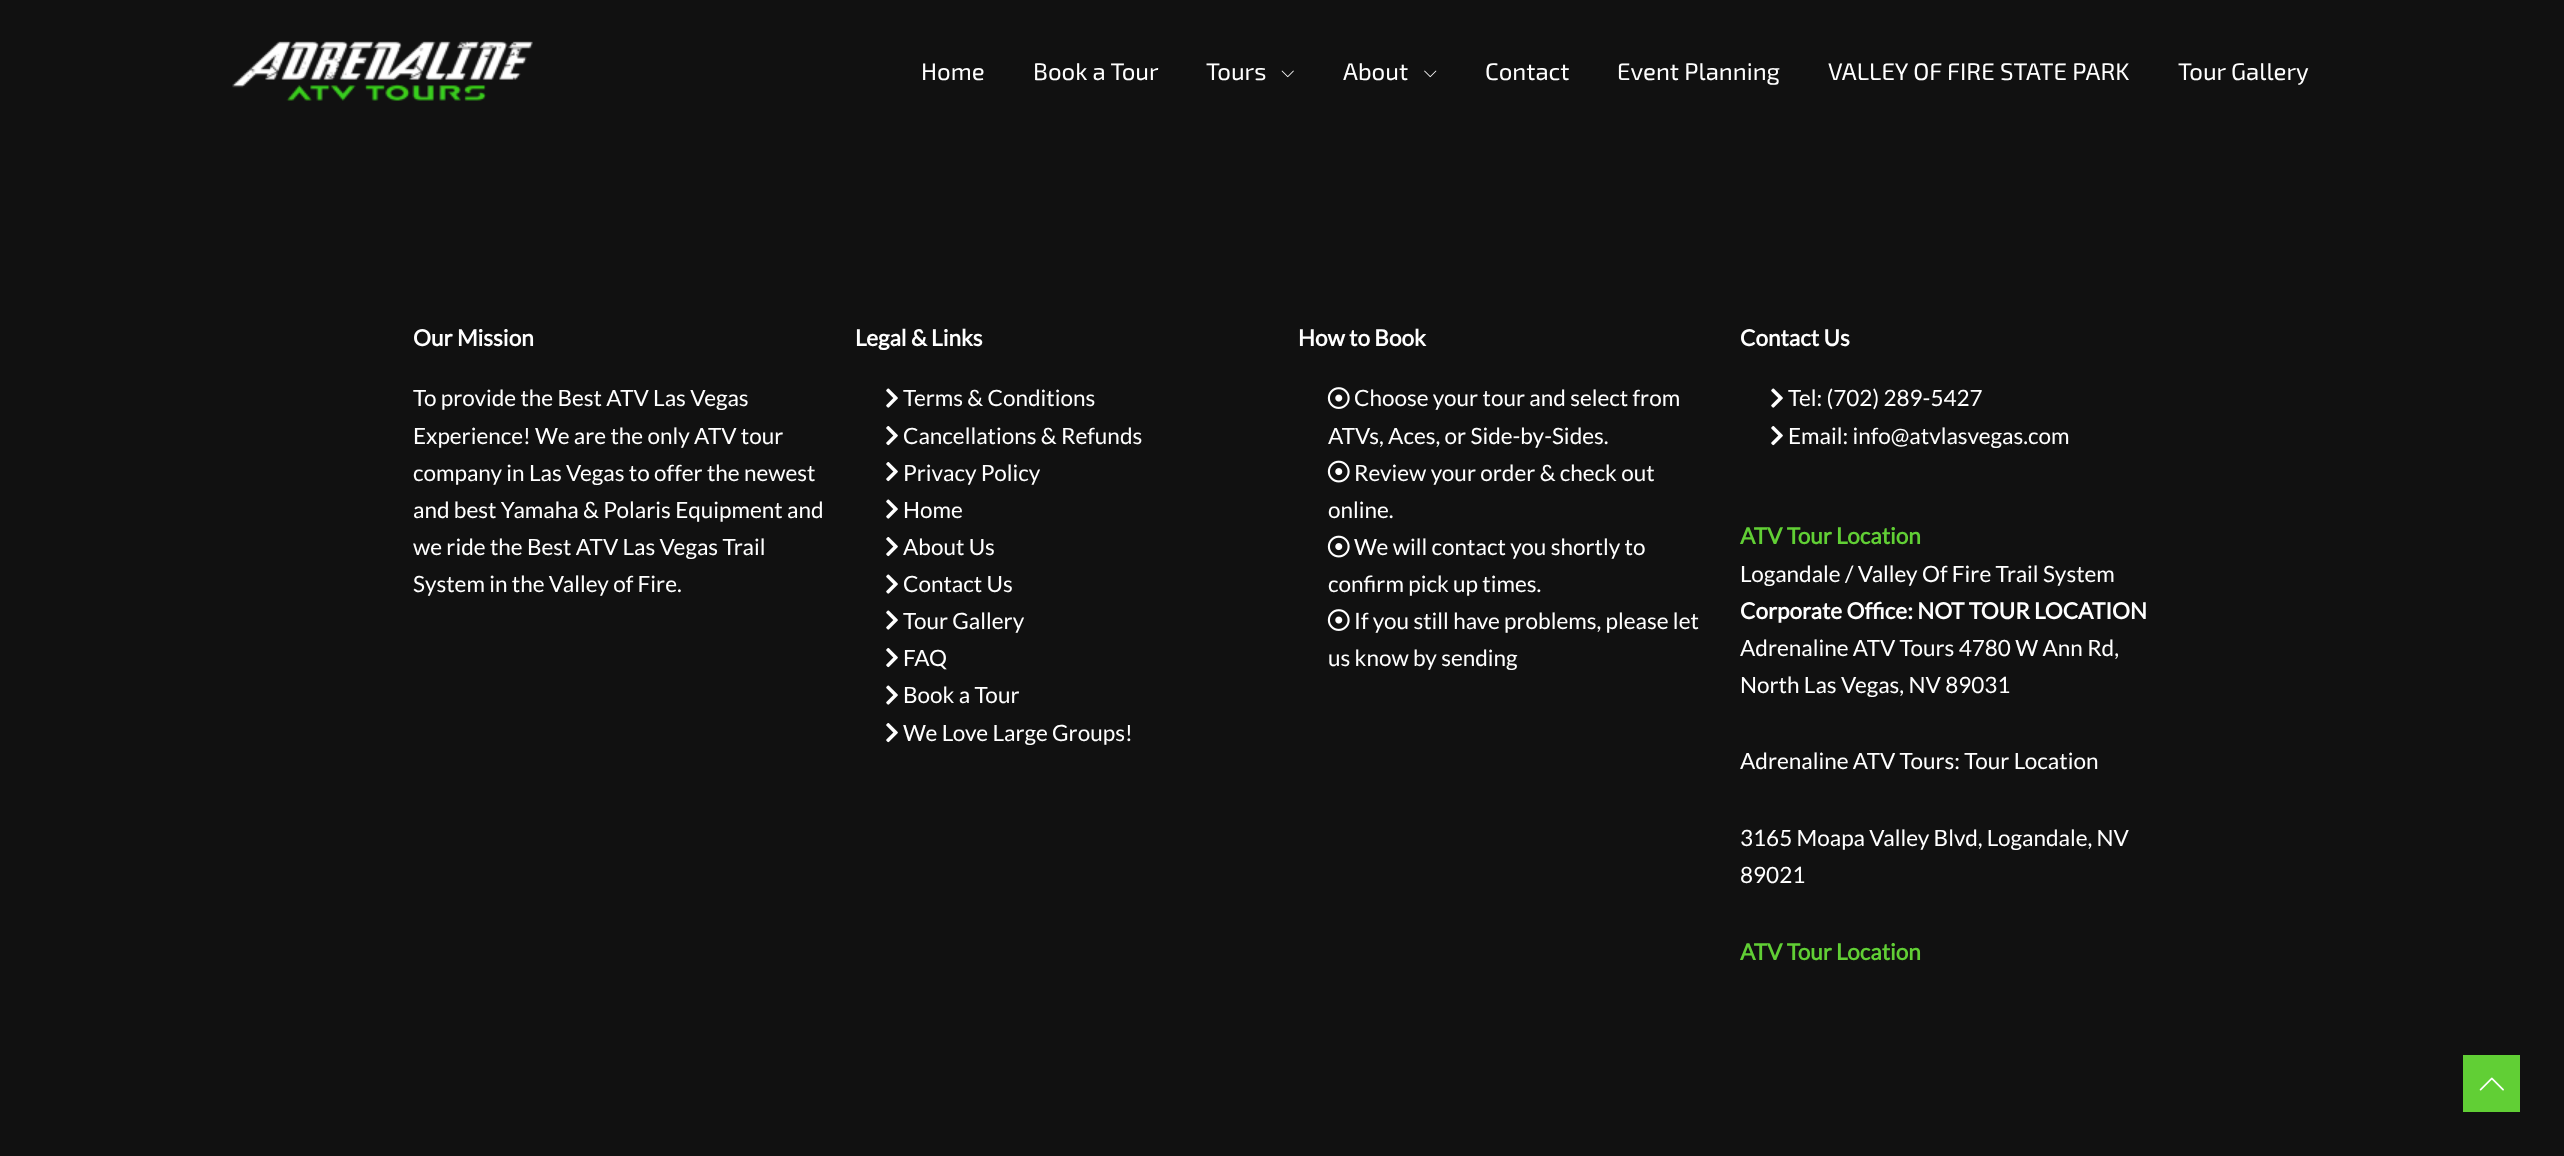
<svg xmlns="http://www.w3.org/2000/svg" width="2564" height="1156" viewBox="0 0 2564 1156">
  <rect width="100%" height="100%" fill="rgb(17,17,17)"/>
  <image x="232" y="41" width="301" height="60" href="pic1.png"/>
  <g font-family="'Exo 2'" font-size="24" fill="rgb(255,255,255)">
    <text x="921" y="80">Home</text>
    <text x="1033" y="80">Book a Tour</text>
    <text x="1206" y="80">Tours</text>
  </g>
  <image x="1281" y="70" width="13" height="8" href="pic2.png"/>
  <text x="1343" y="80" font-family="'Exo 2'" font-size="24" fill="rgb(255,255,255)">About</text>
  <image x="1424" y="70" width="13" height="8" href="pic3.png"/>
  <g font-family="'Exo 2'" font-size="24" fill="rgb(255,255,255)">
    <text x="1485" y="80">Contact</text>
    <text x="1617" y="80">Event Planning</text>
    <text x="1828" y="80">VALLEY OF FIRE STATE PARK</text>
    <text x="2178" y="80">Tour Gallery</text>
  </g>
  <text x="413" y="346" font-family="Lato" font-size="22.5" font-weight="bold" fill="rgb(255,255,255)">Our Mission</text>
  <g font-family="Lato" font-size="22.5" fill="rgb(255,255,255)">
    <text>
      <tspan x="413" y="406">To provide the Best ATV Las Vegas</tspan>
      <tspan x="413" y="444">Experience! We are the only ATV tour</tspan>
      <tspan x="413" y="481">company in Las Vegas to offer the newest</tspan>
      <tspan x="413" y="518">and best Yamaha &amp; Polaris Equipment and</tspan>
      <tspan x="413" y="555">we ride the Best ATV Las Vegas Trail</tspan>
      <tspan x="413" y="592">System in the Valley of Fire.</tspan>
    </text>
  </g>
  <text x="855" y="346" font-family="Lato" font-size="22.5" font-weight="bold" fill="rgb(255,255,255)">Legal &amp; Links</text>
  <image x="886" y="388" width="12" height="20" href="pic4.png"/>
  <text x="903" y="406" font-family="Lato" font-size="22.5" fill="rgb(255,255,255)">Terms &amp; Conditions</text>
  <image x="886" y="426" width="12" height="20" href="pic5.png"/>
  <text x="903" y="444" font-family="Lato" font-size="22.5" fill="rgb(255,255,255)">Cancellations &amp; Refunds</text>
  <image x="886" y="462" width="12" height="20" href="pic5.png"/>
  <text x="903" y="481" font-family="Lato" font-size="22.5" fill="rgb(255,255,255)">Privacy Policy</text>
  <image x="886" y="499" width="12" height="20" href="pic4.png"/>
  <text x="903" y="518" font-family="Lato" font-size="22.5" fill="rgb(255,255,255)">Home</text>
  <image x="886" y="537" width="12" height="20" href="pic5.png"/>
  <text x="903" y="555" font-family="Lato" font-size="22.5" fill="rgb(255,255,255)">About Us</text>
  <image x="886" y="574" width="12" height="20" href="pic4.png"/>
  <text x="903" y="592" font-family="Lato" font-size="22.5" fill="rgb(255,255,255)">Contact Us</text>
  <image x="886" y="610" width="12" height="20" href="pic4.png"/>
  <text x="903" y="629" font-family="Lato" font-size="22.5" fill="rgb(255,255,255)">Tour Gallery</text>
  <image x="886" y="648" width="12" height="20" href="pic5.png"/>
  <text x="903" y="666" font-family="Lato" font-size="22.5" fill="rgb(255,255,255)">FAQ</text>
  <image x="886" y="685" width="12" height="20" href="pic4.png"/>
  <text x="903" y="703" font-family="Lato" font-size="22.5" fill="rgb(255,255,255)">Book a Tour</text>
  <image x="886" y="723" width="12" height="20" href="pic5.png"/>
  <text x="903" y="741" font-family="Lato" font-size="22.5" fill="rgb(255,255,255)">We Love Large Groups!</text>
  <text x="1298" y="346" font-family="Lato" font-size="22.5" font-weight="bold" fill="rgb(255,255,255)">How to Book</text>
  <image x="1327" y="387" width="23" height="22" href="pic6.png"/>
  <g font-family="Lato" font-size="22.5" fill="rgb(255,255,255)">
    <text x="1354" y="406">Choose your tour and select from</text>
    <text x="1328" y="444">ATVs, Aces, or Side-by-Sides.</text>
  </g>
  <image x="1327" y="460" width="23" height="23" href="pic7.png"/>
  <g font-family="Lato" font-size="22.5" fill="rgb(255,255,255)">
    <text x="1354" y="481">Review your order &amp; check out</text>
    <text x="1328" y="518">online.</text>
  </g>
  <image x="1327" y="535" width="23" height="23" href="pic7.png"/>
  <g font-family="Lato" font-size="22.5" fill="rgb(255,255,255)">
    <text x="1354" y="555">We will contact you shortly to</text>
    <text x="1328" y="592">confirm pick up times.</text>
  </g>
  <image x="1327" y="609" width="23" height="22" href="pic6.png"/>
  <g font-family="Lato" font-size="22.5" fill="rgb(255,255,255)">
    <text x="1354" y="629">If you still have problems, please let</text>
    <text x="1328" y="666">us know by sending</text>
  </g>
  <text x="1740" y="346" font-family="Lato" font-size="22.5" font-weight="bold" fill="rgb(255,255,255)">Contact Us</text>
  <image x="1771" y="388" width="12" height="20" href="pic4.png"/>
  <text x="1788" y="406" font-family="Lato" font-size="22.5" fill="rgb(255,255,255)">Tel: (702) 289-5427</text>
  <image x="1771" y="426" width="12" height="20" href="pic5.png"/>
  <text x="1788" y="444" font-family="Lato" font-size="22.5" fill="rgb(255,255,255)">Email: info@atvlasvegas.com</text>
  <text x="1740" y="544" font-family="Lato" font-size="22.5" font-weight="bold" fill="rgb(97,207,53)">ATV Tour Location</text>
  <text x="1740" y="582" font-family="Lato" font-size="22.5" fill="rgb(255,255,255)">Logandale / Valley Of Fire Trail System</text>
  <text x="1740" y="619" font-family="Lato" font-size="22.5" font-weight="bold" fill="rgb(255,255,255)">Corporate Office: NOT TOUR LOCATION</text>
  <g font-family="Lato" font-size="22.5" fill="rgb(255,255,255)">
    <text>
      <tspan x="1740" y="656">Adrenaline ATV Tours 4780 W Ann Rd,</tspan>
      <tspan x="1740" y="693">North Las Vegas, NV 89031</tspan>
    </text>
    <text x="1740" y="769">Adrenaline ATV Tours: Tour Location</text>
    <text>
      <tspan x="1740" y="846">3165 Moapa Valley Blvd, Logandale, NV</tspan>
      <tspan x="1740" y="883">89021</tspan>
    </text>
  </g>
  <text x="1740" y="960" font-family="Lato" font-size="22.5" font-weight="bold" fill="rgb(97,207,53)">ATV Tour Location</text>
  <rect x="2463" y="1055" width="57" height="57" fill="rgb(97,207,53)"/>
  <image x="2479" y="1077" width="25" height="14" href="pic8.png"/>
</svg>
